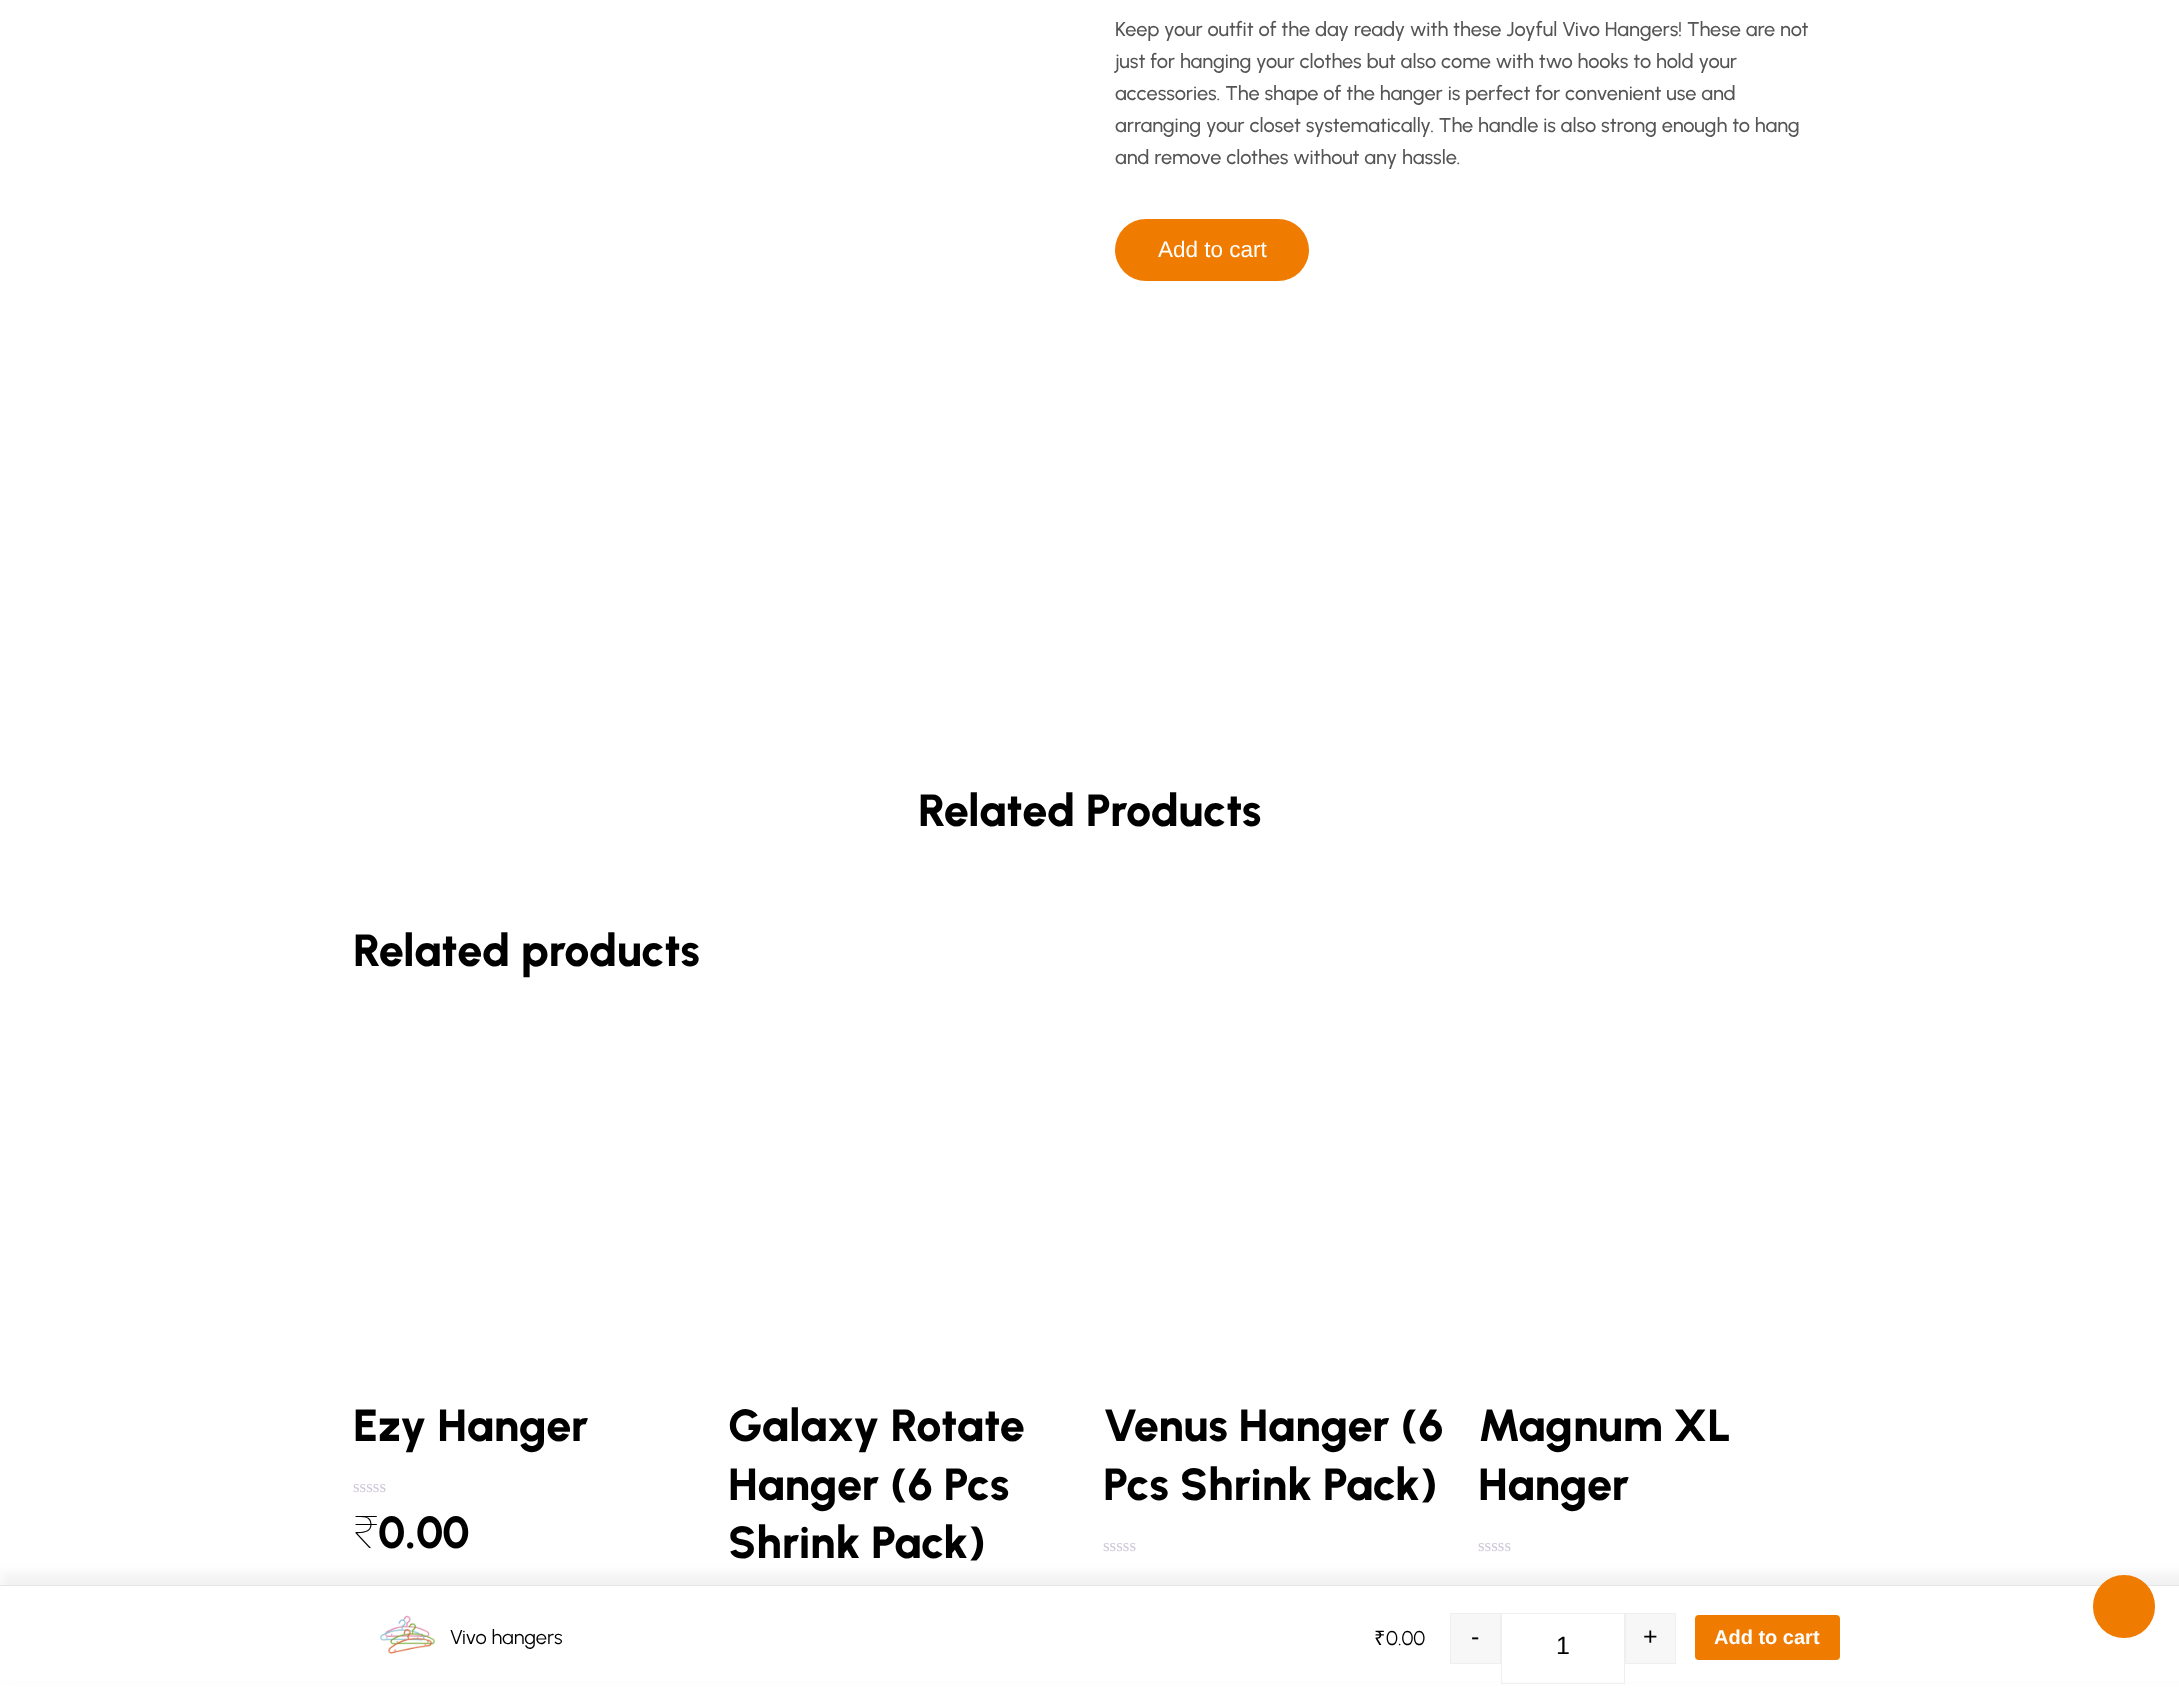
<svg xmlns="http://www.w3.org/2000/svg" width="2179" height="1688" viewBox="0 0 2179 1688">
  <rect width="100%" height="100%" fill="rgb(255,255,255)"/>
  <g font-family="Urbanist" font-size="20" font-weight="500" fill="rgb(85,85,85)">
    <text>
      <tspan x="1115" y="36">Keep your outfit of the day ready with these Joyful Vivo Hangers! These are not</tspan>
      <tspan x="1115" y="68">just for hanging your clothes but also come with two hooks to hold your</tspan>
      <tspan x="1115" y="100">accessories. The shape of the hanger is perfect for convenient use and</tspan>
      <tspan x="1115" y="132">arranging your closet systematically. The handle is also strong enough to hang</tspan>
      <tspan x="1115" y="164">and remove clothes without any hassle.</tspan>
    </text>
  </g>
  <rect x="1115" y="219" width="194" height="62" rx="31" fill="rgb(240,123,1)"/>
  <text x="1158" y="257" font-family="Liberation Sans" font-size="22.5" fill="rgb(255,255,255)">Add to cart</text>
  <g font-family="Urbanist" font-size="45" font-weight="800" fill="rgb(0,0,0)">
    <text x="918" y="826">Related Products</text>
    <text x="353" y="966">Related products</text>
    <text x="353" y="1441">Ezy Hanger</text>
  </g>
  <text x="353" y="1492" font-family="Liberation Serif" font-size="17" fill="rgb(207,200,216)">sssss</text>
  <text x="353" y="1548" font-family="Noto Sans" font-size="45" font-weight="100" fill="rgb(0,0,0)">₹</text>
  <g font-family="Urbanist" font-size="45" font-weight="800" fill="rgb(0,0,0)">
    <text x="378" y="1548">0.00</text>
    <text>
      <tspan x="728" y="1441">Galaxy Rotate</tspan>
      <tspan x="728" y="1500">Hanger (6 Pcs</tspan>
      <tspan x="728" y="1558">Shrink Pack)</tspan>
    </text>
    <text>
      <tspan x="1103" y="1441">Venus Hanger (6</tspan>
      <tspan x="1103" y="1500">Pcs Shrink Pack)</tspan>
    </text>
  </g>
  <text x="1103" y="1551" font-family="Liberation Serif" font-size="17" fill="rgb(207,200,216)">sssss</text>
  <g font-family="Urbanist" font-size="45" font-weight="800" fill="rgb(0,0,0)">
    <text>
      <tspan x="1478" y="1441">Magnum XL</tspan>
      <tspan x="1478" y="1500">Hanger</tspan>
    </text>
  </g>
  <text x="1478" y="1551" font-family="Liberation Serif" font-size="17" fill="rgb(207,200,216)">sssss</text>
  <rect x="0" y="1573" width="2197" height="103" fill="rgba(0,0,0,0.05)" filter="blur(6px)"/>
  <rect x="0" y="1586" width="2179" height="95" fill="rgb(255,255,255)"/>
  <rect x="0" y="1585" width="2179" height="1" fill="rgb(229,229,229)"/>
  <rect x="2093" y="1575" width="62" height="63" rx="31" fill="rgb(240,123,1)"/>
  <image x="380" y="1615" width="55" height="39" href="pic1.png"/>
  <text x="450" y="1644" font-family="Urbanist" font-size="20" fill="rgb(0,0,0)">Vivo hangers</text>
  <text x="1374" y="1645" font-family="Noto Sans" font-size="20" fill="rgb(0,0,0)">₹</text>
  <text x="1386" y="1645" font-family="Urbanist" font-size="20" fill="rgb(0,0,0)">0.00</text>
  <rect x="1450.5" y="1613.5" width="50" height="50" fill="rgb(247,247,247)" stroke="rgb(239,239,239)"/>
  <text x="1471" y="1645" font-family="Liberation Sans" font-size="25" fill="rgb(0,0,0)">-</text>
  <rect x="1501.5" y="1613.5" width="123" height="70" fill="none" stroke="rgb(239,239,239)"/>
  <text x="1556" y="1654" font-family="Liberation Sans" font-size="25" fill="rgb(0,0,0)">1</text>
  <rect x="1625.5" y="1613.5" width="50" height="50" fill="rgb(247,247,247)" stroke="rgb(239,239,239)"/>
  <text x="1643" y="1645" font-family="Liberation Sans" font-size="25" fill="rgb(0,0,0)">+</text>
  <rect x="1695" y="1615" width="145" height="45" rx="4" fill="rgb(240,123,1)"/>
  <text x="1714" y="1644" font-family="Liberation Sans" font-size="20" font-weight="bold" fill="rgb(255,255,255)">Add to cart</text>
</svg>
